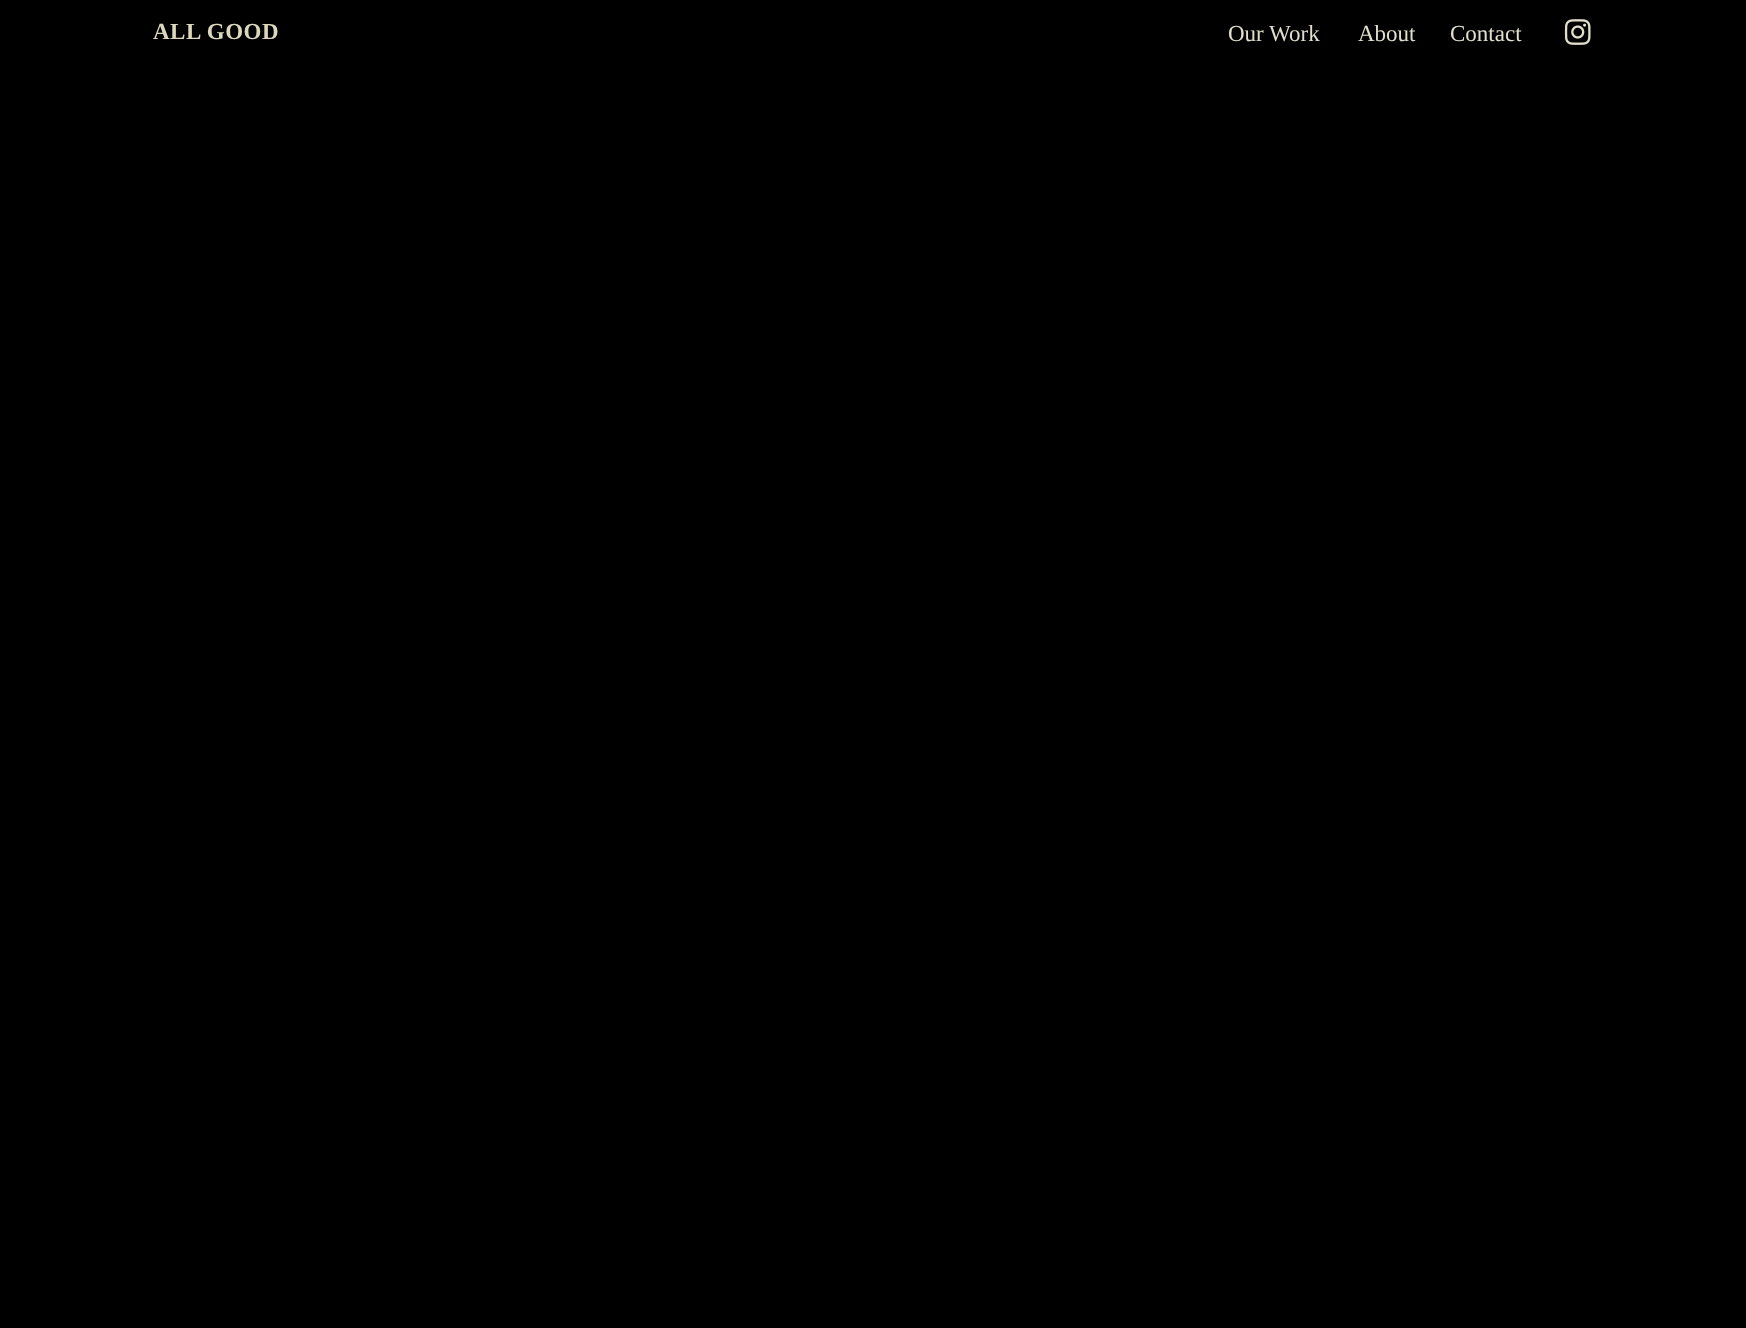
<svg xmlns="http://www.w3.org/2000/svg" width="1746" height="1328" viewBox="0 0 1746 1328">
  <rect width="100%" height="100%" fill="rgb(0,0,0)"/>
  <text x="153" y="39" font-family="Liberation Serif" font-size="23" font-weight="bold" letter-spacing="0.5" fill="rgb(219,216,188)">ALL GOOD</text>
  <g font-family="Liberation Serif" font-size="23" fill="rgb(225,223,203)">
    <text x="1228" y="41">Our Work</text>
    <text x="1358" y="41">About</text>
    <text x="1450" y="41">Contact</text>
  </g>
  <image x="1564" y="19" width="27" height="26" href="pic1.png"/>
</svg>
